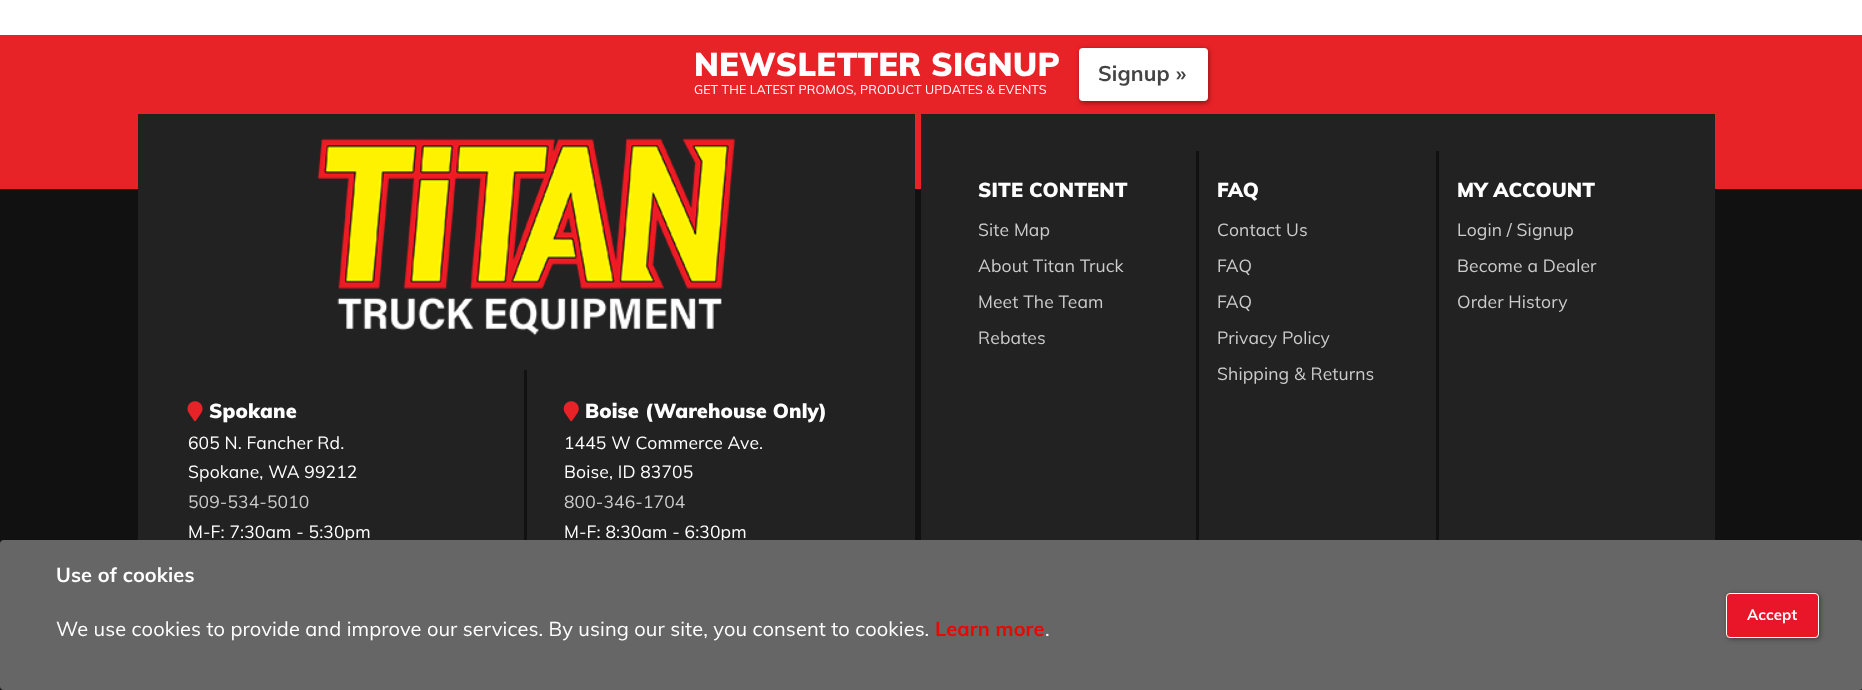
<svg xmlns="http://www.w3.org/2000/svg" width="1862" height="690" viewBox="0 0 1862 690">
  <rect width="100%" height="100%" fill="rgb(255,255,255)"/>
  <rect x="0" y="189" width="1862" height="501" fill="rgb(17,17,17)"/>
  <rect x="0" y="35" width="1862" height="154" fill="rgb(232,35,40)"/>
  <text x="694" y="76" font-family="Muli" font-size="32.5" font-weight="900" letter-spacing="0.12" fill="rgb(255,255,255)">NEWSLETTER SIGNUP</text>
  <text x="694" y="94" font-family="Muli" font-size="12.5" letter-spacing="0.12" fill="rgb(255,255,255)">GET THE LATEST PROMOS, PRODUCT UPDATES &amp; EVENTS</text>
  <rect x="1080" y="49" width="129" height="54" rx="4" fill="rgba(0,0,0,0.4)" filter="blur(2.5px)"/>
  <rect x="1079" y="48" width="129" height="53" rx="4" fill="rgb(255,255,255)"/>
  <text x="1098" y="81" font-family="Muli" font-size="21.25" font-weight="bold" letter-spacing="0.12" fill="rgb(68,68,68)">Signup »</text>
  <rect x="921" y="114" width="794" height="426" fill="rgb(34,34,34)"/>
  <rect x="1196" y="151" width="3" height="389" fill="rgb(17,17,17)"/>
  <text x="978" y="197" font-family="Muli" font-size="20" font-weight="900" letter-spacing="0.12" fill="rgb(255,255,255)">SITE CONTENT</text>
  <g font-family="Muli" font-size="17.5" letter-spacing="0.12" fill="rgb(204,204,204)">
    <text x="978" y="236">Site Map</text>
    <text x="978" y="272">About Titan Truck</text>
    <text x="978" y="308">Meet The Team</text>
    <text x="978" y="344">Rebates</text>
  </g>
  <rect x="1436" y="151" width="3" height="389" fill="rgb(17,17,17)"/>
  <text x="1217" y="197" font-family="Muli" font-size="20" font-weight="900" letter-spacing="0.12" fill="rgb(255,255,255)">FAQ</text>
  <g font-family="Muli" font-size="17.5" letter-spacing="0.12" fill="rgb(204,204,204)">
    <text x="1217" y="236">Contact Us</text>
    <text x="1217" y="272">FAQ</text>
    <text x="1217" y="308">FAQ</text>
    <text x="1217" y="344">Privacy Policy</text>
    <text x="1217" y="380">Shipping &amp; Returns</text>
  </g>
  <text x="1457" y="197" font-family="Muli" font-size="20" font-weight="900" letter-spacing="0.12" fill="rgb(255,255,255)">MY ACCOUNT</text>
  <g font-family="Muli" font-size="17.5" letter-spacing="0.12" fill="rgb(204,204,204)">
    <text x="1457" y="236">Login / Signup</text>
    <text x="1457" y="272">Become a Dealer</text>
    <text x="1457" y="308">Order History</text>
  </g>
  <rect x="138" y="114" width="777" height="426" fill="rgb(34,34,34)"/>
  <image x="317" y="138" width="419" height="198" href="pic1.png"/>
  <rect x="524" y="370" width="3" height="170" fill="rgb(17,17,17)"/>
  <image x="187" y="401" width="16" height="21" href="pic2.png"/>
  <text x="209" y="418" font-family="Muli" font-size="20" font-weight="900" letter-spacing="0.12" fill="rgb(255,255,255)">Spokane</text>
  <g font-family="Muli" font-size="17.5" letter-spacing="0.12" fill="rgb(255,255,255)">
    <text>
      <tspan x="188" y="449">605 N. Fancher Rd.</tspan>
      <tspan x="188" y="478">Spokane, WA 99212</tspan>
    </text>
  </g>
  <text x="188" y="508" font-family="Muli" font-size="17.5" letter-spacing="0.12" fill="rgb(204,204,204)">509-534-5010</text>
  <text x="188" y="538" font-family="Muli" font-size="17.5" letter-spacing="0.12" fill="rgb(255,255,255)">M-F: 7:30am - 5:30pm</text>
  <image x="563" y="401" width="16" height="21" href="pic3.png"/>
  <text x="585" y="418" font-family="Muli" font-size="20" font-weight="900" letter-spacing="0.12" fill="rgb(255,255,255)">Boise (Warehouse Only)</text>
  <g font-family="Muli" font-size="17.5" letter-spacing="0.12" fill="rgb(255,255,255)">
    <text>
      <tspan x="564" y="449">1445 W Commerce Ave.</tspan>
      <tspan x="564" y="478">Boise, ID 83705</tspan>
    </text>
  </g>
  <text x="564" y="508" font-family="Muli" font-size="17.5" letter-spacing="0.12" fill="rgb(204,204,204)">800-346-1704</text>
  <text x="564" y="538" font-family="Muli" font-size="17.5" letter-spacing="0.12" fill="rgb(255,255,255)">M-F: 8:30am - 6:30pm</text>
  <rect x="0" y="540" width="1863" height="150" rx="4" fill="rgb(102,102,102)"/>
  <text x="56" y="582" font-family="Muli" font-size="20" font-weight="bold" letter-spacing="0.12" fill="rgb(255,255,255)">Use of cookies</text>
  <text x="56" y="636" font-family="Muli" font-size="20" letter-spacing="0.12" fill="rgb(255,255,255)">We use cookies to provide and improve our services. By using our site, you consent to cookies.</text>
  <text x="935" y="636" font-family="Muli" font-size="20" font-weight="bold" letter-spacing="0.12" fill="rgb(231,9,0)">Learn more</text>
  <text x="1045" y="636" font-family="Muli" font-size="20" letter-spacing="0.12" fill="rgb(255,255,255)">.</text>
  <rect x="1728" y="594" width="92" height="45" rx="4" fill="rgba(0,0,0,0.4)" filter="blur(2.5px)"/>
  <rect x="1726.5" y="593.5" width="92" height="44" rx="3.5" fill="rgb(232,22,40)" stroke="rgb(255,255,255)"/>
  <text x="1747" y="620" font-family="Muli" font-size="15" font-weight="bold" letter-spacing="0.12" fill="rgb(255,255,255)">Accept</text>
</svg>
